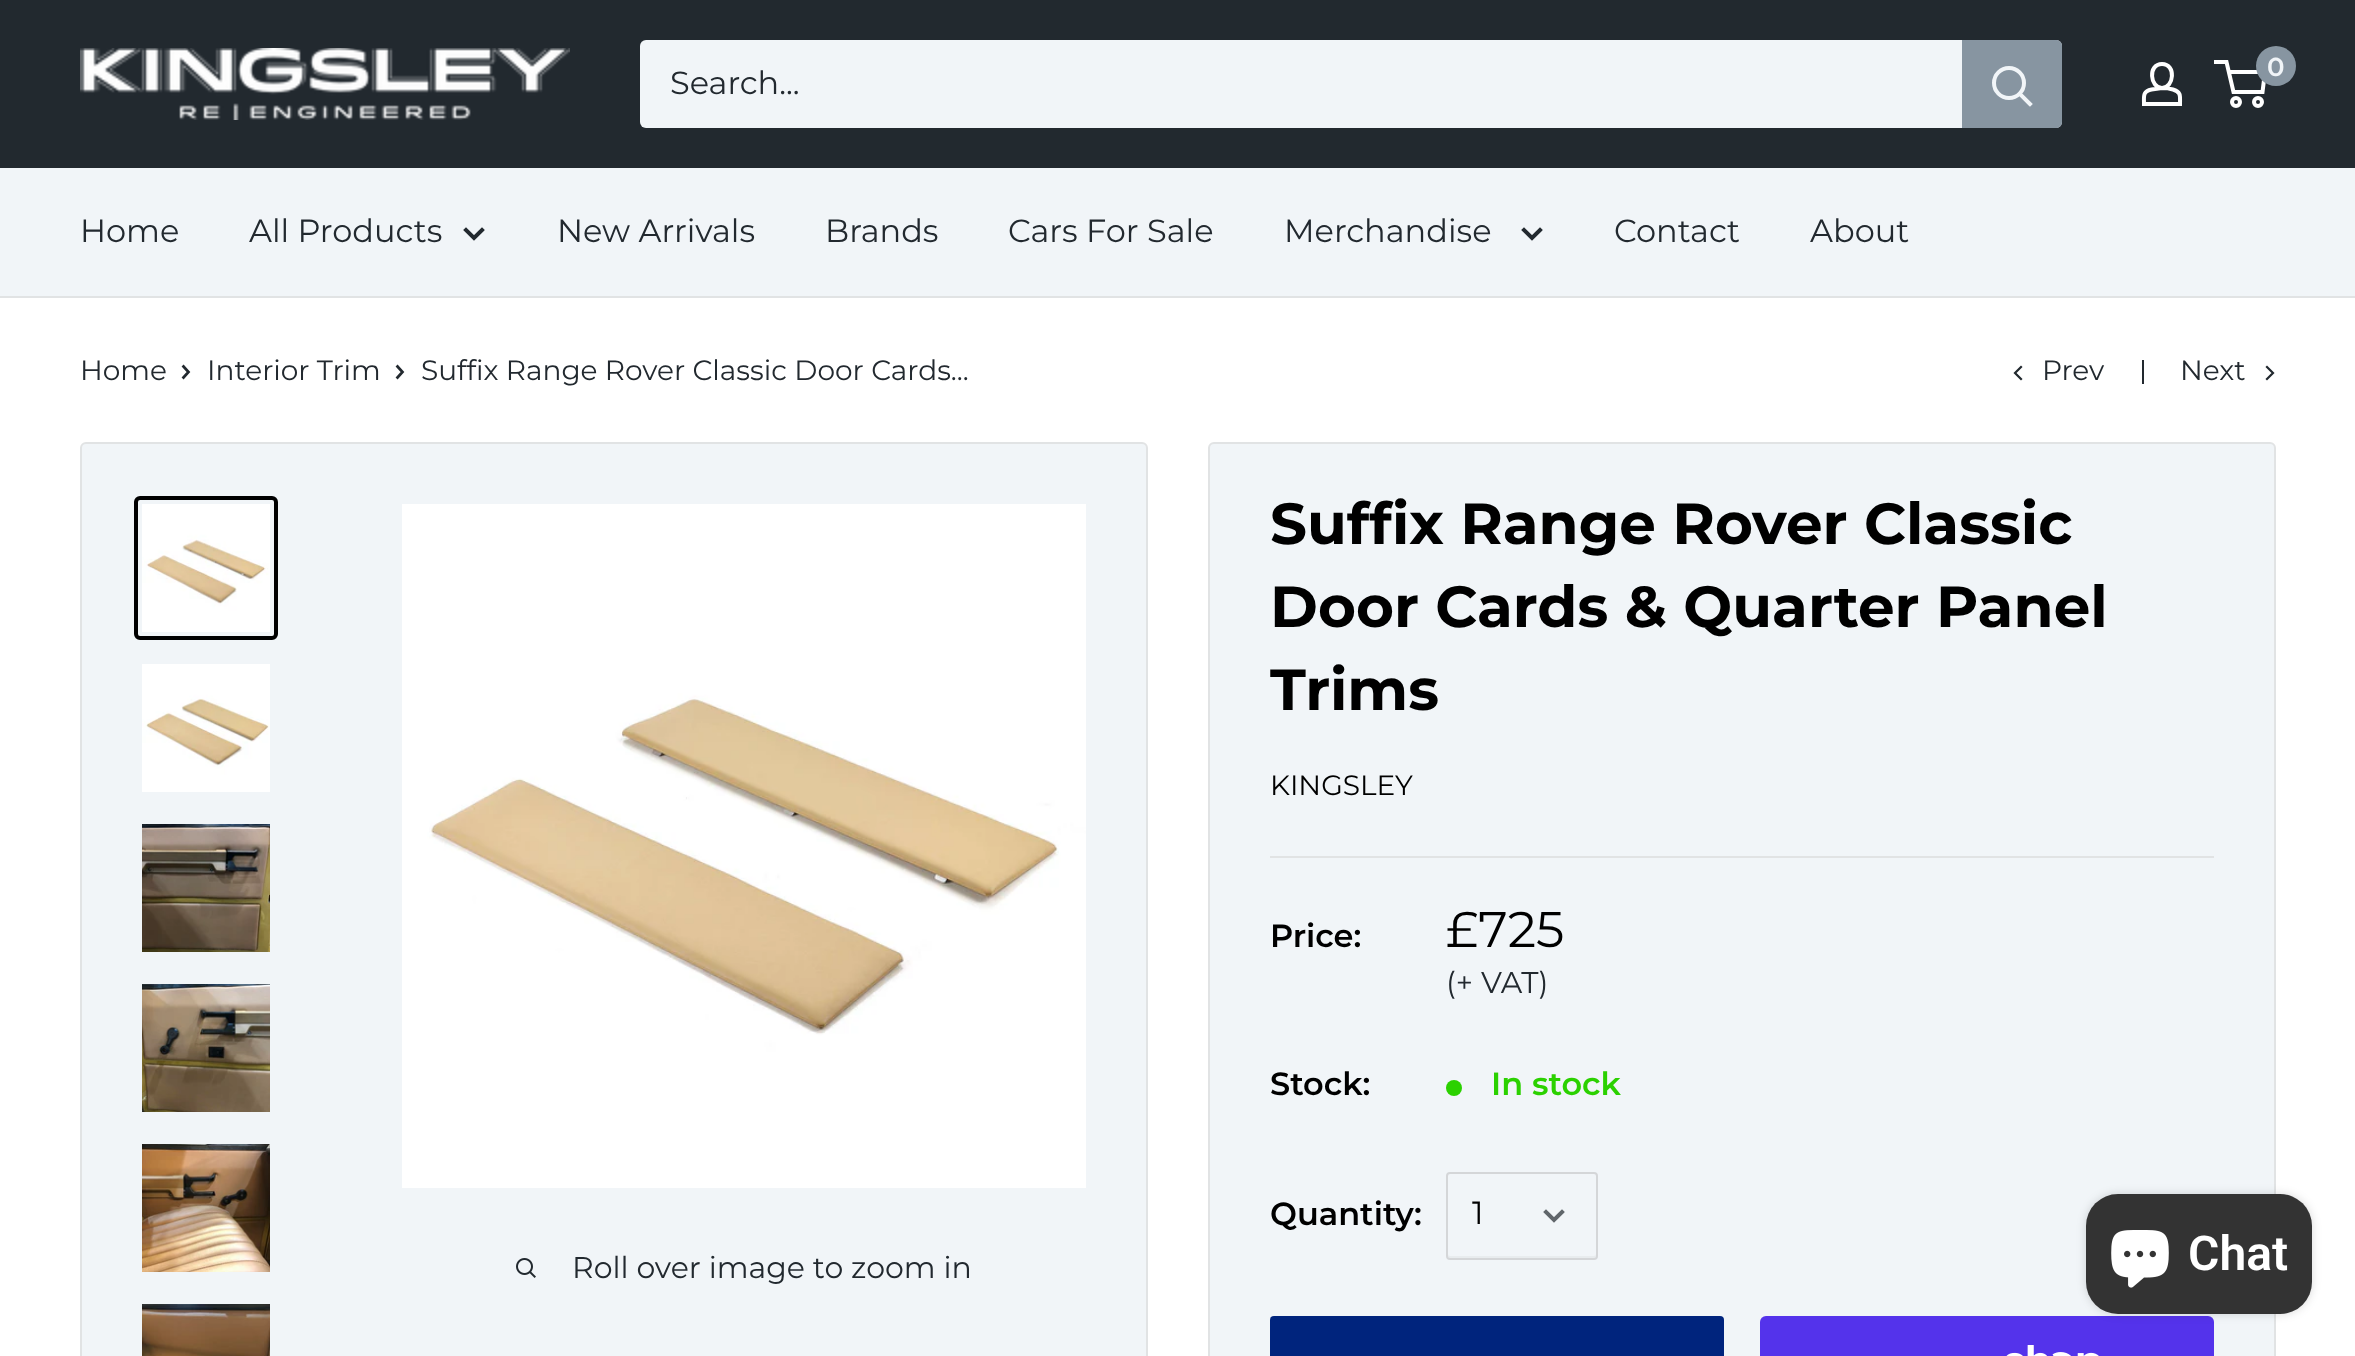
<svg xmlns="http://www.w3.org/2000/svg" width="2355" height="1356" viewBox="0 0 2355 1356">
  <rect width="100%" height="100%" fill="rgb(255,255,255)"/>
  <rect x="0" y="0" width="2355" height="168" fill="rgb(34,41,47)"/>
  <image x="80" y="48" width="490" height="72" href="pic1.png"/>
  <path d="M2162 88C2166 88 2169.5 88.5 2173 89.5C2181.5 92 2180 96.5 2180 104H2144C2144 96 2142.5 91.5 2151.5 89.5ZM2162 88C2150 88 2147.5 64 2162 64C2176.5 64 2174 88 2162 88Z" fill="none" stroke="rgb(255,255,255)" stroke-width="4"/>
  <circle cx="2236" cy="102" r="4" fill="none" stroke="rgb(255,255,255)" stroke-width="4"/>
  <circle cx="2258" cy="102" r="4" fill="none" stroke="rgb(255,255,255)" stroke-width="4"/>
  <path d="M2228.5 72H2265L2262.5 92H2233.5L2226.5 62H2214" fill="none" stroke="rgb(255,255,255)" stroke-width="4"/>
  <circle cx="2276" cy="66" r="20" fill="rgb(135,149,161)"/>
  <text x="2267" y="76" font-family="Montserrat" font-size="26" font-weight="600" fill="rgb(241,245,248)">0</text>
  <rect x="640" y="40" width="1422" height="88" rx="6" fill="rgb(241,245,248)"/>
  <text x="670" y="94" font-family="Montserrat" font-size="32" fill="rgb(34,41,47)">Search...</text>
  <path d="M1962 40H2056C2059.5 40 2062 42.5 2062 46V122C2062 125.5 2059.5 128 2056 128H1962Z" fill="rgb(135,149,161)"/>
  <path d="M2030 104L2020 94" fill="none" stroke="rgb(241,245,248)" stroke-width="4" stroke-linecap="square"/>
  <circle cx="2009" cy="83" r="15" fill="none" stroke="rgb(241,245,248)" stroke-width="4"/>
  <rect x="0" y="168" width="2355" height="128" fill="rgb(241,245,248)"/>
  <rect x="0" y="296" width="2355" height="2" fill="rgb(225,227,228)"/>
  <g font-family="Montserrat" font-size="32" fill="rgb(34,41,47)">
    <text x="80" y="242">Home</text>
    <text x="249" y="242">All Products</text>
  </g>
  <path d="M482 230L474 238L466 230" fill="none" stroke="rgb(34,41,47)" stroke-width="4" stroke-linecap="square"/>
  <g font-family="Montserrat" font-size="32" fill="rgb(34,41,47)">
    <text x="557" y="242">New Arrivals</text>
    <text x="825" y="242">Brands</text>
    <text x="1008" y="242">Cars For Sale</text>
    <text x="1284" y="242">Merchandise</text>
  </g>
  <path d="M1540 230L1532 238L1524 230" fill="none" stroke="rgb(34,41,47)" stroke-width="4" stroke-linecap="square"/>
  <g font-family="Montserrat" font-size="32" fill="rgb(34,41,47)">
    <text x="1614" y="242">Contact</text>
    <text x="1810" y="242">About</text>
  </g>
  <text x="80" y="380" font-family="Montserrat" font-size="28" fill="rgb(34,41,47)">Home</text>
  <path d="M183.5 366.5L188.5 372L183.5 377.5" fill="none" stroke="rgb(34,41,47)" stroke-width="2.7" stroke-linecap="square"/>
  <text x="207" y="380" font-family="Montserrat" font-size="28" fill="rgb(34,41,47)">Interior Trim</text>
  <path d="M397.5 366.5L402.5 372L397.5 377.5" fill="none" stroke="rgb(34,41,47)" stroke-width="2.7" stroke-linecap="square"/>
  <text x="421" y="380" font-family="Montserrat" font-size="28" fill="rgb(34,41,47)">Suffix Range Rover Classic Door Cards...</text>
  <path d="M2021 379L2015 373L2021 367" fill="none" stroke="rgb(34,41,47)" stroke-width="2.2" stroke-linecap="square"/>
  <text x="2042" y="380" font-family="Montserrat" font-size="28" fill="rgb(34,41,47)">Prev</text>
  <rect x="2142" y="360" width="2" height="24" fill="rgb(34,41,47)"/>
  <text x="2180" y="380" font-family="Montserrat" font-size="28" fill="rgb(34,41,47)">Next</text>
  <path d="M2267 367L2273 373L2267 379" fill="none" stroke="rgb(34,41,47)" stroke-width="2.2" stroke-linecap="square"/>
  <rect x="1209" y="443" width="1066" height="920" rx="5" fill="rgb(241,245,248)" stroke="rgb(225,227,228)" stroke-width="2"/>
  <g font-family="Montserrat" font-size="58" font-weight="bold" fill="rgb(0,0,0)">
    <text>
      <tspan x="1270" y="544">Suffix Range Rover Classic</tspan>
      <tspan x="1270" y="627">Door Cards &amp; Quarter Panel</tspan>
      <tspan x="1270" y="710">Trims</tspan>
    </text>
  </g>
  <text x="1270" y="795" font-family="Montserrat" font-size="28" fill="rgb(0,0,0)">KINGSLEY</text>
  <rect x="1270" y="856" width="944" height="2" fill="rgb(225,227,228)"/>
  <text x="1270" y="947" font-family="Montserrat" font-size="32" font-weight="600" fill="rgb(0,0,0)">Price:</text>
  <text x="1446" y="947" font-family="Montserrat" font-size="50" fill="rgb(0,0,0)">£725</text>
  <text x="1446" y="993" font-family="Montserrat" font-size="30" fill="rgb(34,41,47)">(+ VAT)</text>
  <text x="1270" y="1095" font-family="Montserrat" font-size="32" font-weight="600" fill="rgb(0,0,0)">Stock:</text>
  <circle cx="1454" cy="1088" r="8" fill="rgb(43,209,0)"/>
  <text x="1491" y="1095" font-family="Montserrat" font-size="32" font-weight="600" fill="rgb(43,209,0)">In stock</text>
  <text x="1270" y="1225" font-family="Montserrat" font-size="32" font-weight="600" fill="rgb(0,0,0)">Quantity:</text>
  <path d="M1448 1254C1448 1256 1448 1258 1450 1258H1594C1596 1258 1596 1255 1596 1254C1596 1255 1595 1256 1594 1256H1450C1449 1256 1448 1255 1448 1254Z" fill="rgb(232,236,238)"/>
  <rect x="1447" y="1173" width="150" height="86" rx="3" fill="none" stroke="rgb(212,214,216)" stroke-width="2"/>
  <text x="1472" y="1224" font-family="Montserrat" font-size="32" fill="rgb(0,0,0)">1</text>
  <path d="M1562 1212L1554 1220L1546 1212" fill="none" stroke="rgb(96,102,107)" stroke-width="4" stroke-linecap="square"/>
  <rect x="1270" y="1316" width="454" height="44" rx="4" fill="rgb(0,36,125)"/>
  <rect x="1760" y="1316" width="454" height="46" rx="6" fill="rgb(84,51,235)"/>
  <image x="2006" y="1345" width="93" height="11" href="pic2.png"/>
  <rect x="81" y="443" width="1066" height="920" rx="5" fill="rgb(241,245,248)" stroke="rgb(225,227,228)" stroke-width="2"/>
  <rect x="136" y="498" width="140" height="140" rx="4" fill="none" stroke="rgb(0,0,0)" stroke-width="4"/>
  <image x="142" y="504" width="128" height="128" href="pic3.png"/>
  <image x="142" y="664" width="128" height="128" href="pic4.png"/>
  <image x="142" y="824" width="128" height="128" href="pic5.png"/>
  <image x="142" y="984" width="128" height="128" href="pic6.png"/>
  <image x="142" y="1144" width="128" height="128" href="pic7.png"/>
  <image x="142" y="1304" width="128" height="52" href="pic8.png"/>
  <image x="402" y="504" width="684" height="684" href="pic9.png"/>
  <image x="516" y="1258" width="20" height="20" href="pic10.png"/>
  <text x="572" y="1278" font-family="Montserrat" font-size="30" fill="rgb(34,41,47)">Roll over image to zoom in</text>
  <rect x="2086" y="1194" width="226" height="120" rx="32" fill="rgba(0,0,0,0.15)" filter="blur(5px)"/>
  <rect x="2086" y="1194" width="226" height="120" rx="32" fill="rgb(51,51,51)"/>
  <image x="2111" y="1230" width="58" height="58" href="pic11.png"/>
  <text x="2188" y="1270" font-family="Roboto" font-size="48" font-weight="600" fill="rgb(255,255,255)">Chat</text>
</svg>
